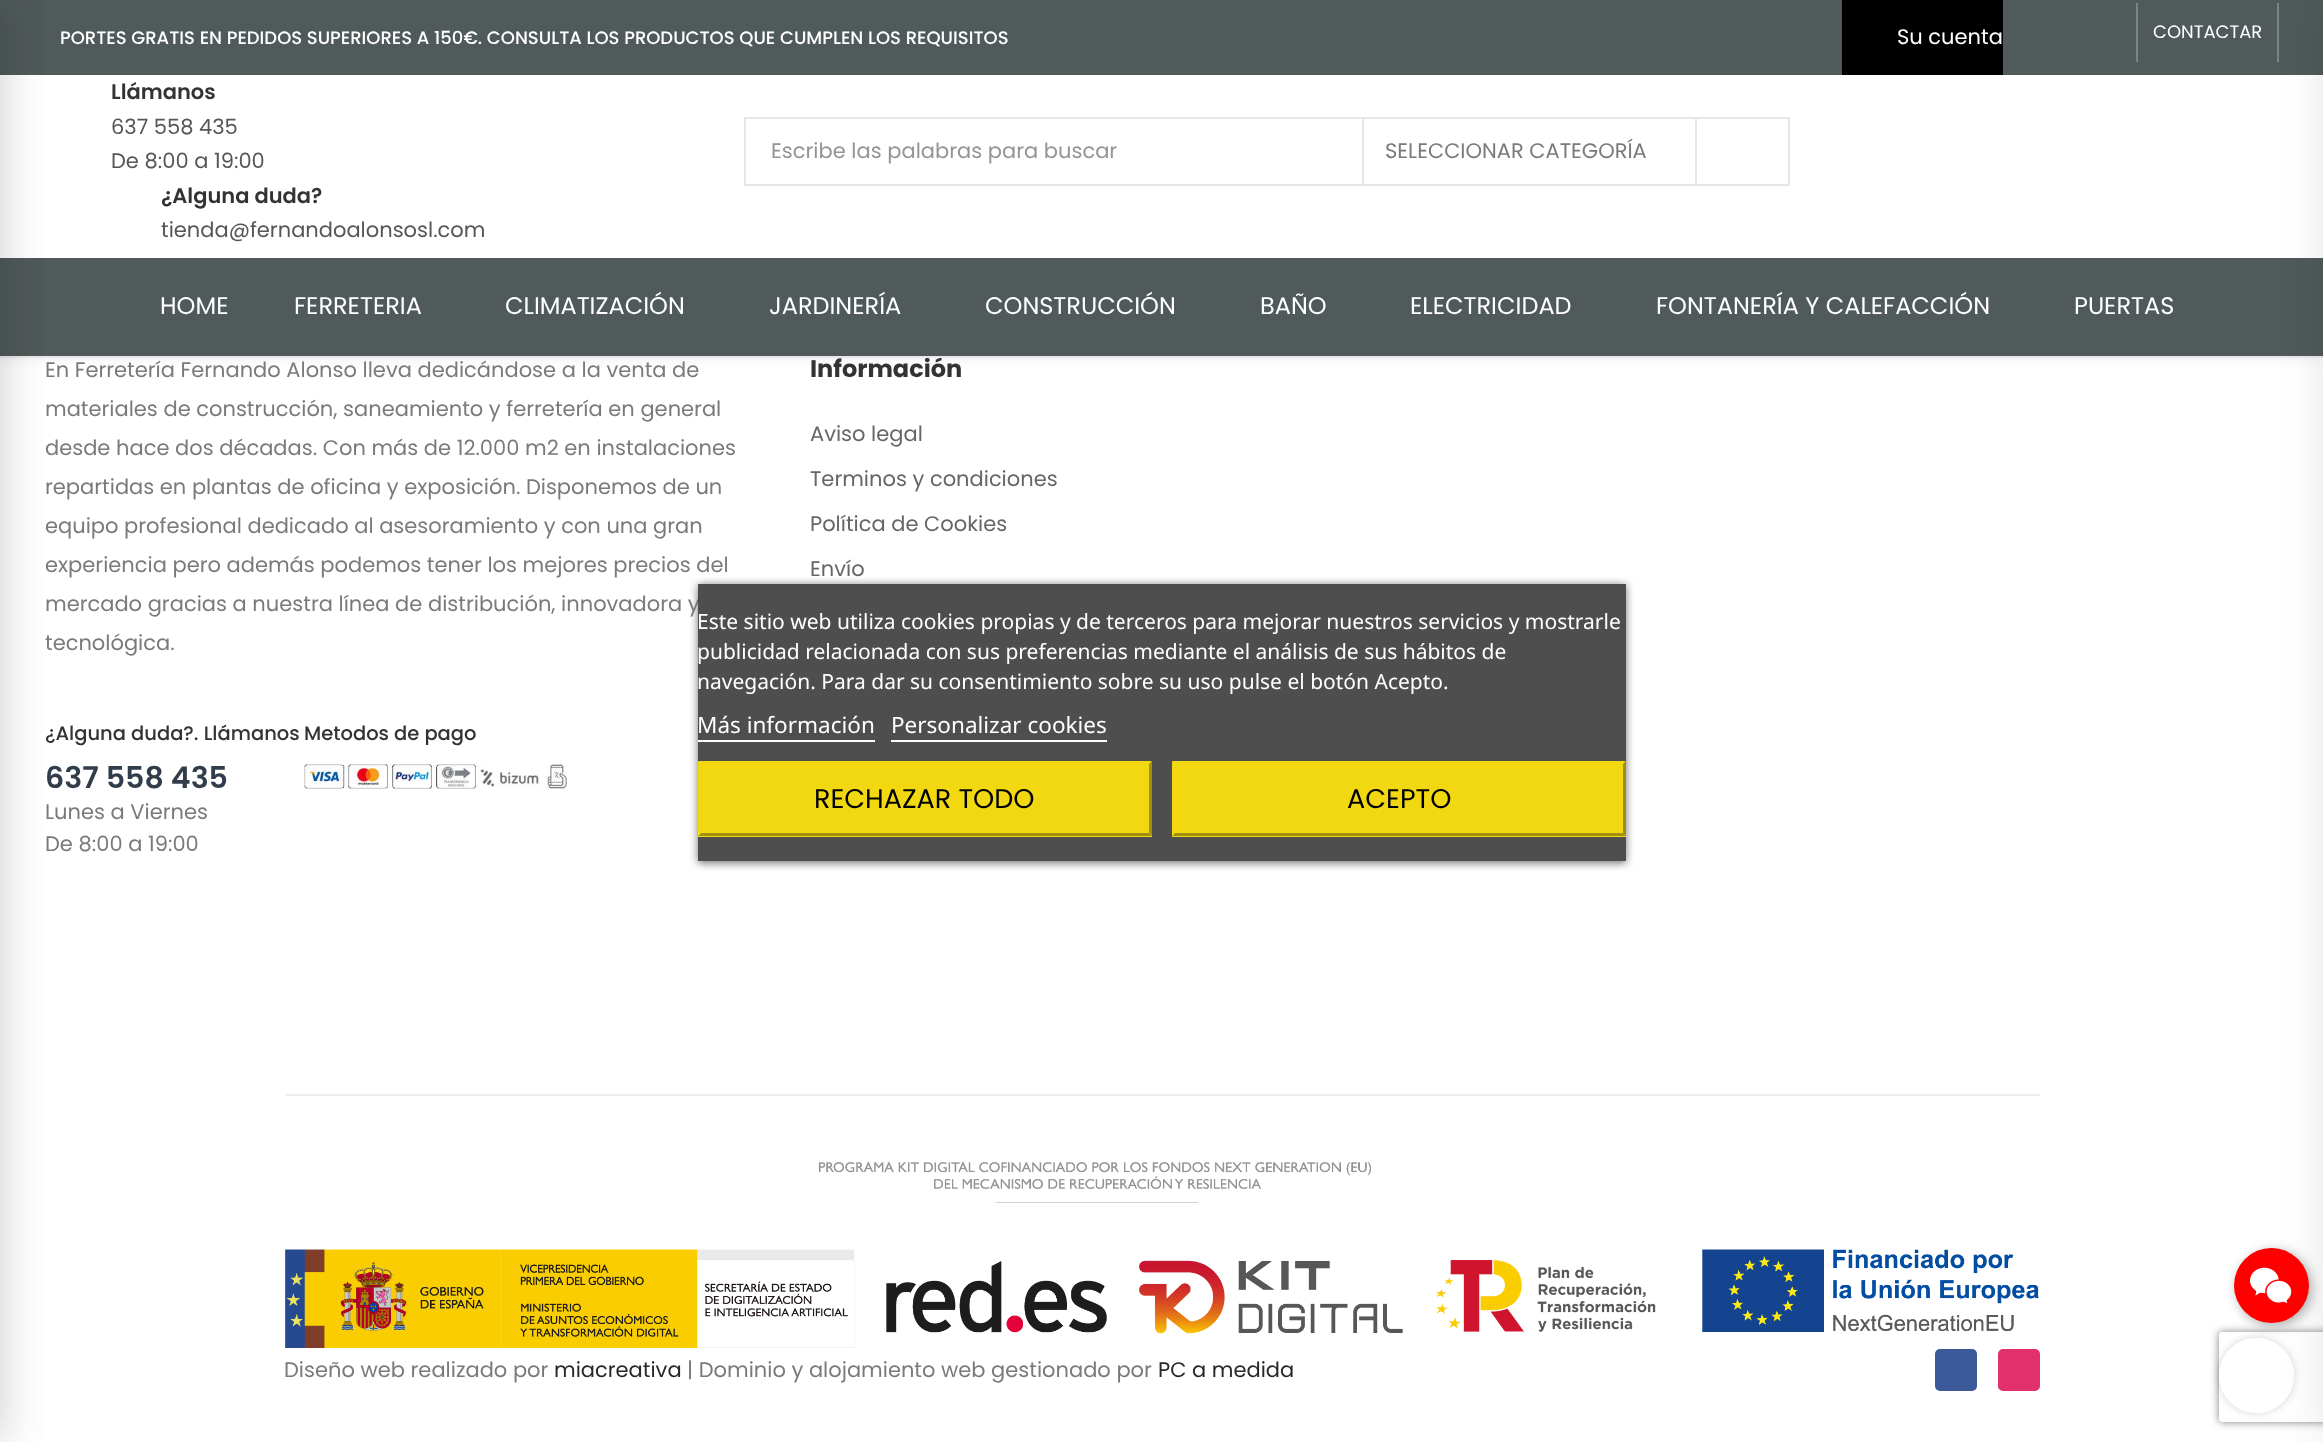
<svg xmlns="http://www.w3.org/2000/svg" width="2323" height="1442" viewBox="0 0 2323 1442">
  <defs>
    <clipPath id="clip1"><path d="M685 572H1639V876H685ZM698 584H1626V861H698Z" clip-rule="evenodd"/></clipPath>
    <clipPath id="clip2"><path d="M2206 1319H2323V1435H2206ZM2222 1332H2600C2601.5 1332 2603 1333.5 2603 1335V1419C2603 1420.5 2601.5 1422 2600 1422H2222C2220.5 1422 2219 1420.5 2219 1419V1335C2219 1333.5 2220.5 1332 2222 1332Z" clip-rule="evenodd"/></clipPath>
    <clipPath id="clip3"><path d="M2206 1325H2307V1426H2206ZM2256.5 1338C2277 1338 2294 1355 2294 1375.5C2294 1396 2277 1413 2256.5 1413C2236 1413 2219 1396 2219 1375.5C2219 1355 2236 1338 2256.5 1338Z" clip-rule="evenodd"/></clipPath>
  </defs>
  <rect width="100%" height="100%" fill="rgb(255,255,255)"/>
  <rect x="0" y="5" width="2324" height="357" fill="rgba(51,51,51,0.05)" filter="blur(4.5px)"/>
  <rect x="0" y="75" width="2323" height="183" fill="rgb(255,255,255)"/>
  <rect x="0" y="0" width="2323" height="75" fill="rgb(80,90,90)"/>
  <rect x="0" y="258" width="2323" height="98" fill="rgb(80,90,90)"/>
  <text x="810" y="377" font-family="Poppins" font-size="24" font-weight="bold" fill="rgb(51,51,51)">Información</text>
  <rect x="0" y="356" width="2323" height="2" fill="rgb(232,232,232)"/>
  <rect x="-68" y="0" width="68" height="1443" fill="rgba(0,0,0,0.1)" filter="blur(22.5px)"/>
  <rect x="-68" y="0" width="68" height="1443" fill="rgba(0,0,0,0.1)" filter="blur(22.5px)"/>
  <text x="60" y="44" font-family="Poppins" font-size="18" font-weight="500" fill="rgb(255,255,255)">PORTES GRATIS EN PEDIDOS SUPERIORES A 150€. CONSULTA LOS PRODUCTOS QUE CUMPLEN LOS REQUISITOS</text>
  <rect x="1842" y="0" width="161" height="75" fill="rgb(0,0,0)"/>
  <text x="1897" y="44" font-family="Poppins" font-size="21" fill="rgb(255,255,255)">Su cuenta</text>
  <rect x="2277" y="3" width="2" height="59" fill="rgb(124,131,131)"/>
  <rect x="2136" y="3" width="2" height="59" fill="rgb(124,131,131)"/>
  <text x="2153" y="38" font-family="Poppins" font-size="18" fill="rgb(255,255,255)">CONTACTAR</text>
  <text x="111" y="99" font-family="Poppins" font-size="21" font-weight="600" fill="rgb(51,51,51)">Llámanos</text>
  <g font-family="Poppins" font-size="21" fill="rgb(86,86,86)">
    <text>
      <tspan x="111" y="134">637 558 435</tspan>
      <tspan x="111" y="168">De 8:00 a 19:00</tspan>
    </text>
  </g>
  <text x="161" y="203" font-family="Poppins" font-size="21" font-weight="600" fill="rgb(51,51,51)">¿Alguna duda?</text>
  <text x="161" y="237" font-family="Poppins" font-size="21" fill="rgb(86,86,86)">tienda@fernandoalonsosl.com</text>
  <rect x="745" y="118" width="1044" height="67" fill="none" stroke="rgb(230,230,230)" stroke-width="2"/>
  <text x="771" y="158" font-family="Poppins" font-size="21" fill="rgb(148,148,148)">Escribe las palabras para buscar</text>
  <rect x="1695" y="117" width="2" height="69" fill="rgb(230,230,230)"/>
  <rect x="1362" y="117" width="2" height="69" fill="rgb(230,230,230)"/>
  <text x="1385" y="158" font-family="Poppins" font-size="21" fill="rgb(122,122,122)">SELECCIONAR CATEGORÍA</text>
  <g font-family="Poppins" font-size="24" fill="rgb(255,255,255)">
    <text x="160" y="314">HOME</text>
    <text x="294" y="314">FERRETERIA</text>
    <text x="505" y="314">CLIMATIZACIÓN</text>
    <text x="769" y="314">JARDINERÍA</text>
    <text x="985" y="314">CONSTRUCCIÓN</text>
    <text x="1260" y="314">BAÑO</text>
    <text x="1410" y="314">ELECTRICIDAD</text>
    <text x="1656" y="314">FONTANERÍA Y CALEFACCIÓN</text>
    <text x="2074" y="314">PUERTAS</text>
  </g>
  <g font-family="Poppins" font-size="21" fill="rgb(122,122,122)">
    <text>
      <tspan x="45" y="377">En Ferretería Fernando Alonso lleva dedicándose a la venta de</tspan>
      <tspan x="45" y="416">materiales de construcción, saneamiento y ferretería en general</tspan>
      <tspan x="45" y="455">desde hace dos décadas. Con más de 12.000 m2 en instalaciones</tspan>
      <tspan x="45" y="494">repartidas en plantas de oficina y exposición. Disponemos de un</tspan>
      <tspan x="45" y="533">equipo profesional dedicado al asesoramiento y con una gran</tspan>
      <tspan x="45" y="572">experiencia pero además podemos tener los mejores precios del</tspan>
      <tspan x="45" y="611">mercado gracias a nuestra línea de distribución, innovadora y</tspan>
      <tspan x="45" y="650">tecnológica.</tspan>
    </text>
  </g>
  <text x="45" y="740" font-family="Poppins" font-size="19.5" font-weight="500" fill="rgb(51,51,51)">¿Alguna duda?. Llámanos</text>
  <text x="45" y="788" font-family="Poppins" font-size="30" font-weight="600" fill="rgb(49,61,74)">637 558 435</text>
  <g font-family="Poppins" font-size="21" fill="rgb(122,122,122)">
    <text>
      <tspan x="45" y="819">Lunes a Viernes</tspan>
      <tspan x="45" y="851">De 8:00 a 19:00</tspan>
    </text>
  </g>
  <text x="304" y="740" font-family="Poppins" font-size="19.5" font-weight="500" fill="rgb(51,51,51)">Metodos de pago</text>
  <image x="304" y="764" width="263" height="25" href="pic1.png"/>
  <g font-family="Poppins" font-size="21" fill="rgb(102,102,102)">
    <text x="810" y="441">Aviso legal</text>
    <text x="810" y="486">Terminos y condiciones</text>
    <text x="810" y="531">Política de Cookies</text>
    <text x="810" y="576">Envío</text>
  </g>
  <rect x="285" y="1094" width="1755" height="2" fill="rgb(238,238,239)"/>
  <image x="285" y="1162" width="1754" height="186" href="pic2.png"/>
  <text x="284" y="1377" font-family="Poppins" font-size="21" fill="rgb(122,122,122)">Diseño web realizado por</text>
  <text x="554" y="1377" font-family="Poppins" font-size="21" fill="rgb(40,40,40)">miacreativa</text>
  <text x="687" y="1377" font-family="Poppins" font-size="21" fill="rgb(122,122,122)">| Dominio y alojamiento web gestionado por</text>
  <text x="1158" y="1377" font-family="Poppins" font-size="21" fill="rgb(40,40,40)">PC a medida</text>
  <rect x="1935" y="1349" width="42" height="42" rx="5" fill="rgb(59,89,152)"/>
  <rect x="1998" y="1349" width="42" height="42" rx="5" fill="rgb(225,48,108)"/>
  <g clip-path="url(#clip1)">
    <rect x="698" y="585" width="928" height="278" fill="rgb(112,112,112)" filter="blur(4px)"/>
  </g>
  <rect x="698" y="584" width="928" height="277" fill="rgba(59,59,59,0.9)"/>
  <g font-family="Noto Sans" font-size="21" fill="rgb(255,255,255)">
    <text>
      <tspan x="697" y="629">Este sitio web utiliza cookies propias y de terceros para mejorar nuestros servicios y mostrarle</tspan>
      <tspan x="697" y="659">publicidad relacionada con sus preferencias mediante el análisis de sus hábitos de</tspan>
      <tspan x="697" y="689">navegación. Para dar su consentimiento sobre su uso pulse el botón Acepto.</tspan>
    </text>
  </g>
  <text x="697" y="733" font-family="Noto Sans" font-size="22.5" fill="rgb(255,255,255)">Más información</text>
  <rect x="698" y="740" width="177" height="2" fill="rgb(255,255,255)"/>
  <text x="891" y="733" font-family="Noto Sans" font-size="22.5" fill="rgb(255,255,255)">Personalizar cookies</text>
  <rect x="891" y="740" width="216" height="2" fill="rgb(255,255,255)"/>
  <rect x="698" y="762" width="454" height="75" fill="rgb(242,216,17)"/>
  <path d="M698 761H1152L1149 764H701Z" fill="rgb(242,216,17)"/>
  <path d="M1152 761V836L1149 833V764Z" fill="rgb(161,144,11)"/>
  <path d="M1152 836H698L701 833H1149Z" fill="rgb(161,144,11)"/>
  <path d="M698 836V761L701 764V833Z" fill="rgb(242,216,17)"/>
  <text x="814" y="808" font-family="Poppins" font-size="27" fill="rgb(0,0,0)">RECHAZAR TODO</text>
  <rect x="1172" y="762" width="454" height="75" fill="rgb(242,216,17)"/>
  <path d="M1172 761H1626L1623 764H1175Z" fill="rgb(242,216,17)"/>
  <path d="M1626 761V836L1623 833V764Z" fill="rgb(161,144,11)"/>
  <path d="M1626 836H1172L1175 833H1623Z" fill="rgb(161,144,11)"/>
  <path d="M1172 836V761L1175 764V833Z" fill="rgb(242,216,17)"/>
  <text x="1347" y="808" font-family="Poppins" font-size="27" fill="rgb(0,0,0)">ACEPTO</text>
  <g clip-path="url(#clip2)">
    <rect x="2219" y="1332" width="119" height="90" rx="3" fill="rgb(128,128,128)" filter="blur(4px)"/>
  </g>
  <g clip-path="url(#clip3)">
    <rect x="2219" y="1338" width="75" height="75" rx="37.5" fill="rgba(0,0,0,0.17)" filter="blur(4px)"/>
  </g>
  <circle cx="2256.5" cy="1375.5" r="37.5" fill="rgba(255,255,255,0.9)"/>
  <rect x="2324" y="0" width="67" height="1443" fill="rgba(0,0,0,0.1)" filter="blur(22.5px)"/>
  <rect x="2237" y="1251" width="75" height="75" rx="37.5" fill="rgb(170,170,170)" filter="blur(6px)"/>
  <circle cx="2271.5" cy="1285.5" r="37.5" fill="rgb(255,0,0)"/>
  <image x="2250" y="1267" width="42" height="37" href="pic3.png"/>
</svg>
